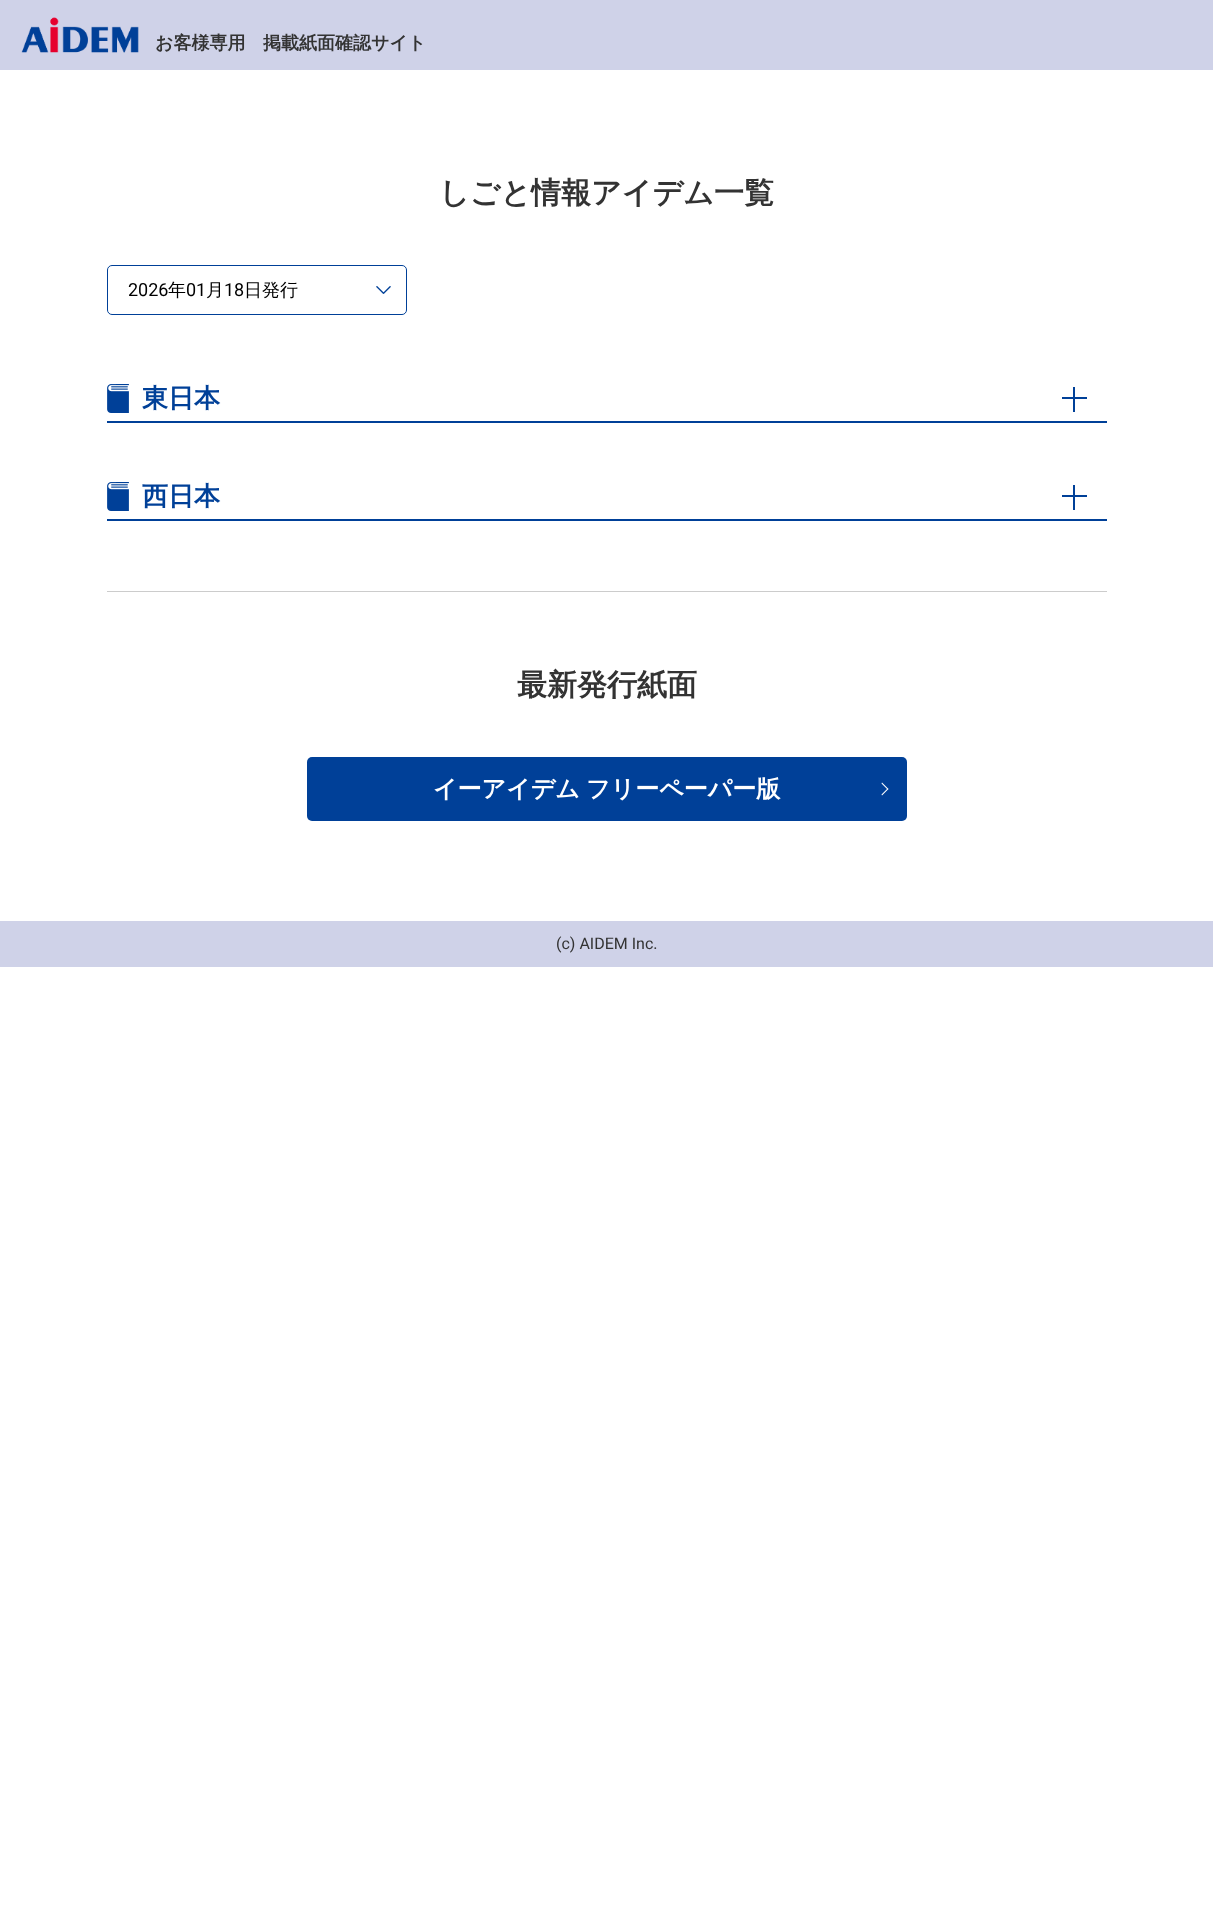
<svg xmlns="http://www.w3.org/2000/svg" width="1213" height="1908" viewBox="0 0 1213 1908">
  <rect width="100%" height="100%" fill="rgb(255,255,255)"/>
  <rect x="0" y="0" width="1213" height="70" fill="rgb(207,210,232)"/>
  <image x="21" y="17" width="118" height="36" href="pic1.png"/>
  <g font-family="WenQuanYi Zen Hei" font-size="18" font-weight="bold" fill="rgb(51,51,51)">
    <text x="155" y="49">お客様専用</text>
    <text x="263" y="49">掲載紙面確認サイト</text>
  </g>
  <text x="439" y="203" font-family="WenQuanYi Zen Hei" font-size="30" font-weight="bold" fill="rgb(51,51,51)">しごと情報アイデム一覧</text>
  <image x="376" y="286" width="15" height="8" href="pic2.png"/>
  <rect x="107.5" y="265.5" width="299" height="49" rx="4.5" fill="none" stroke="rgb(0,64,152)"/>
  <text x="128" y="296" font-family="Roboto" font-size="18" fill="rgb(0,0,0)">2026</text>
  <text x="168" y="296" font-family="WenQuanYi Zen Hei" font-size="18" font-weight="500" fill="rgb(0,0,0)">年</text>
  <text x="186" y="296" font-family="Roboto" font-size="18" fill="rgb(0,0,0)">01</text>
  <text x="206" y="296" font-family="WenQuanYi Zen Hei" font-size="18" font-weight="500" fill="rgb(0,0,0)">月</text>
  <text x="224" y="296" font-family="Roboto" font-size="18" fill="rgb(0,0,0)">18</text>
  <text x="244" y="296" font-family="WenQuanYi Zen Hei" font-size="18" font-weight="500" fill="rgb(0,0,0)">日発行</text>
  <image x="107" y="384" width="22" height="29" href="pic3.png"/>
  <rect x="107" y="421" width="1000" height="2" fill="rgb(0,64,152)"/>
  <text x="142" y="407" font-family="WenQuanYi Zen Hei" font-size="26" font-weight="bold" fill="rgb(0,64,152)">東日本</text>
  <rect x="1073" y="387" width="2" height="25" fill="rgb(0,64,152)"/>
  <rect x="1062" y="397" width="25" height="2" fill="rgb(0,64,152)"/>
  <image x="107" y="482" width="22" height="29" href="pic3.png"/>
  <rect x="107" y="519" width="1000" height="2" fill="rgb(0,64,152)"/>
  <text x="142" y="505" font-family="WenQuanYi Zen Hei" font-size="26" font-weight="bold" fill="rgb(0,64,152)">西日本</text>
  <rect x="1073" y="485" width="2" height="25" fill="rgb(0,64,152)"/>
  <rect x="1062" y="495" width="25" height="2" fill="rgb(0,64,152)"/>
  <rect x="107" y="591" width="1000" height="1" fill="rgb(204,204,204)"/>
  <text x="517" y="695" font-family="WenQuanYi Zen Hei" font-size="30" font-weight="bold" fill="rgb(51,51,51)">最新発行紙面</text>
  <rect x="307" y="757" width="600" height="64" rx="5" fill="rgb(0,64,152)"/>
  <text x="433" y="797" word-spacing="-1" font-family="WenQuanYi Zen Hei" font-size="24" font-weight="bold" fill="rgb(255,255,255)">イーアイデム フリーペーパー版</text>
  <path d="M882 782.5L888.5 789L887.5 789.5L881.5 783.5Z" fill="rgb(255,255,255)"/>
  <path d="M887.5 788.5L888.5 789L882 795.5L881.5 794.5Z" fill="rgb(255,255,255)"/>
  <rect x="0" y="921" width="1213" height="46" fill="rgb(207,210,232)"/>
  <text x="556" y="949" font-family="Roboto" font-size="16" fill="rgb(51,51,51)">(c) AIDEM Inc.</text>
</svg>
